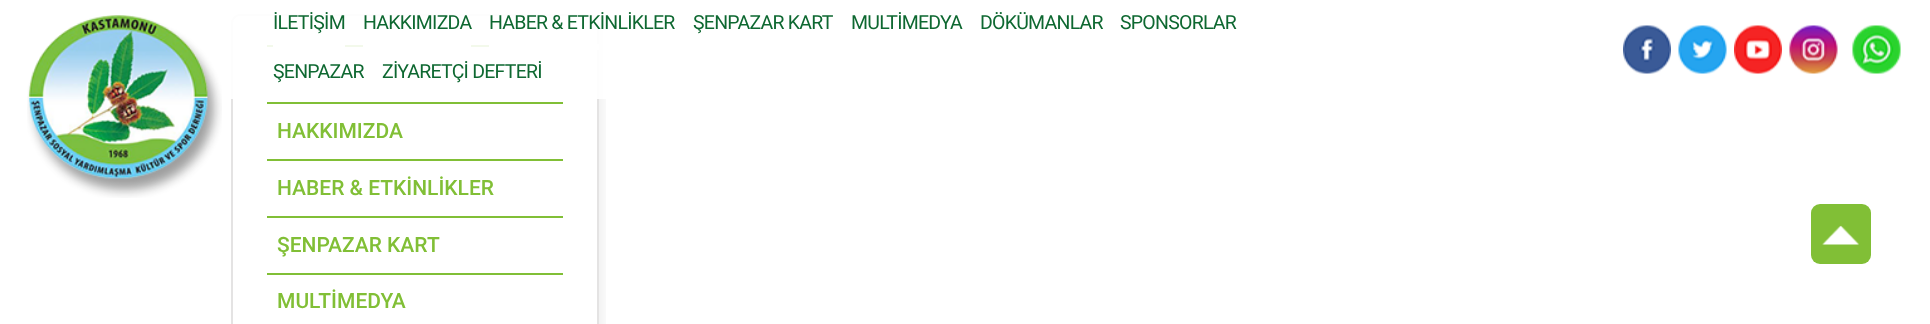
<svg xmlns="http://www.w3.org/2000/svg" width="1930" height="324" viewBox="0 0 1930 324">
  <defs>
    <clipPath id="clip1"><rect x="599" y="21" width="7" height="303"/></clipPath>
  </defs>
  <rect width="100%" height="100%" fill="rgb(255,255,255)"/>
  <g clip-path="url(#clip1)">
    <rect x="237" y="20" width="368" height="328" rx="9" fill="rgba(0,0,0,0.05)" filter="blur(5px)"/>
  </g>
  <image x="27" y="15" width="195" height="183" href="pic1.png"/>
  <rect x="232" y="15" width="366" height="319" rx="8" fill="none" stroke="rgb(228,227,227)" stroke-width="2"/>
  <rect x="267" y="45" width="222" height="2" fill="rgb(129,191,54)"/>
  <rect x="231" y="14" width="378" height="85" fill="rgba(255,255,255,0.9)"/>
  <rect x="273" y="45" width="72" height="2" fill="rgb(255,255,255)"/>
  <text x="273" y="29" font-family="Roboto" font-size="19.5" letter-spacing="-0.75" fill="rgb(14,104,49)">İLETİŞİM</text>
  <rect x="363" y="45" width="108" height="2" fill="rgb(255,255,255)"/>
  <text x="363" y="29" font-family="Roboto" font-size="19.5" letter-spacing="-0.75" fill="rgb(14,104,49)">HAKKIMIZDA</text>
  <rect x="597" y="44" width="2" height="6" fill="rgb(255,255,255)"/>
  <g font-family="Roboto" font-size="19.5" letter-spacing="-0.75" fill="rgb(14,104,49)">
    <text x="489" y="29">HABER &amp; ETKİNLİKLER</text>
    <text x="693" y="29">ŞENPAZAR KART</text>
    <text x="851" y="29">MULTİMEDYA</text>
    <text x="980" y="29">DÖKÜMANLAR</text>
    <text x="1120" y="29">SPONSORLAR</text>
    <text x="273" y="78">ŞENPAZAR</text>
    <text x="382" y="78">ZİYARETÇİ DEFTERİ</text>
  </g>
  <image x="1623" y="25" width="48" height="49" href="pic2.png"/>
  <image x="1678" y="25" width="49" height="49" href="pic3.png"/>
  <image x="1734" y="25" width="48" height="49" href="pic4.png"/>
  <image x="1789" y="25" width="49" height="49" href="pic5.png"/>
  <image x="1852" y="25" width="49" height="49" href="pic6.png"/>
  <rect x="267" y="102" width="296" height="2" fill="rgb(129,191,54)"/>
  <rect x="267" y="159" width="296" height="2" fill="rgb(129,191,54)"/>
  <text x="277" y="138" font-family="Roboto" font-size="21" font-weight="500" fill="rgb(129,191,54)">HAKKIMIZDA</text>
  <rect x="267" y="216" width="296" height="2" fill="rgb(129,191,54)"/>
  <text x="277" y="195" font-family="Roboto" font-size="21" font-weight="500" fill="rgb(129,191,54)">HABER &amp; ETKİNLİKLER</text>
  <rect x="267" y="273" width="296" height="2" fill="rgb(129,191,54)"/>
  <g font-family="Roboto" font-size="21" font-weight="500" fill="rgb(129,191,54)">
    <text x="277" y="252">ŞENPAZAR KART</text>
    <text x="277" y="308">MULTİMEDYA</text>
  </g>
  <rect x="1811" y="204" width="60" height="60" rx="9" fill="rgb(129,191,54)"/>
  <image x="1822" y="225" width="37" height="20" href="pic7.png"/>
</svg>
